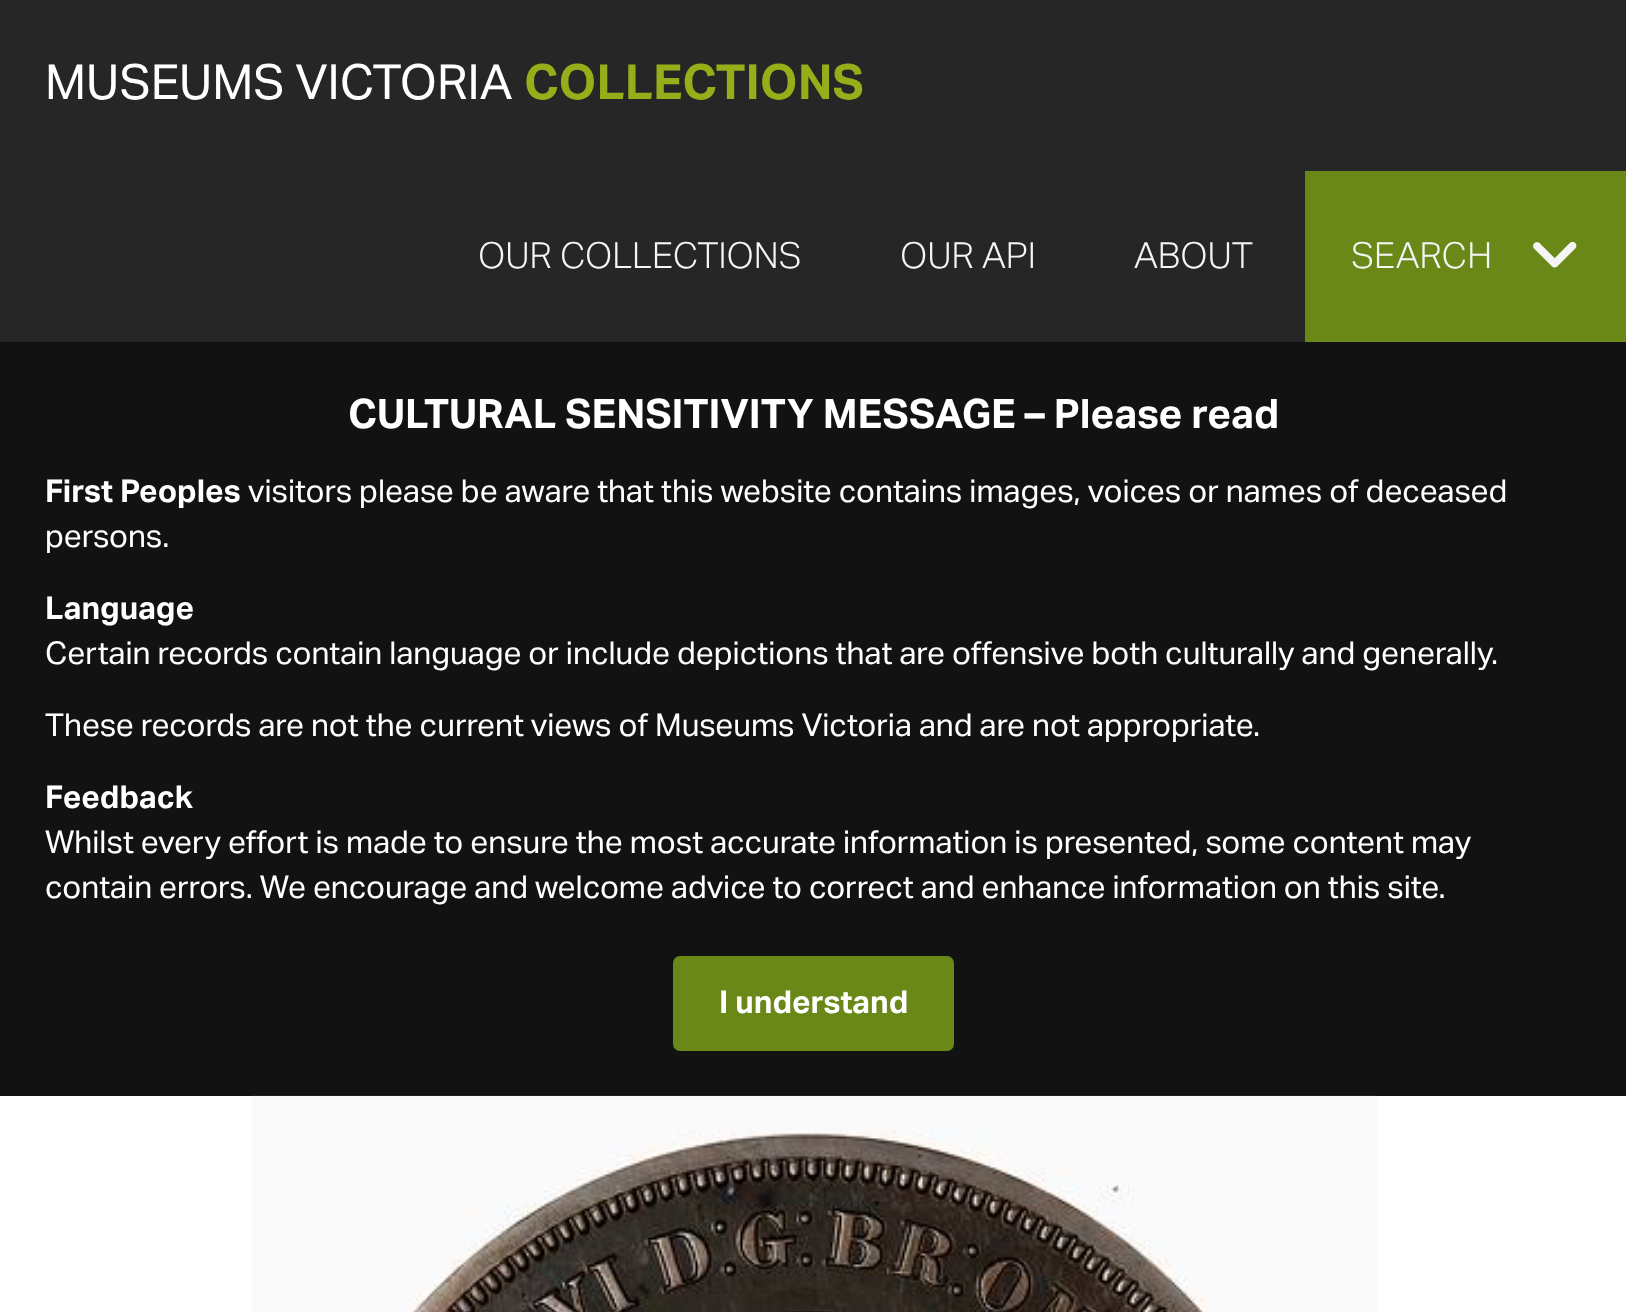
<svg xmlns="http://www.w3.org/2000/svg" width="1626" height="1312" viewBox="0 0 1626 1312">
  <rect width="100%" height="100%" fill="rgb(38,38,38)"/>
  <text x="45" y="99" font-family="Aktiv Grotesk" font-size="48.5" fill="rgb(255,255,255)">MUSEUMS VICTORIA</text>
  <text x="524" y="99" font-family="Aktiv Grotesk" font-size="48.5" font-weight="bold" fill="rgb(148,175,25)">COLLECTIONS</text>
  <g font-family="Aktiv Grotesk" font-size="36" font-weight="300" fill="rgb(245,245,245)">
    <text x="478" y="268">OUR COLLECTIONS</text>
    <text x="900" y="268">OUR API</text>
    <text x="1134" y="268">ABOUT</text>
  </g>
  <rect x="1305" y="171" width="321" height="171" fill="rgb(106,136,24)"/>
  <text x="1351" y="268" font-family="Aktiv Grotesk" font-size="36" font-weight="300" fill="rgb(245,245,245)">SEARCH</text>
  <image x="1533" y="241" width="44" height="27" href="pic1.png"/>
  <rect x="0" y="342" width="1626" height="754" fill="rgb(18,18,18)"/>
  <text x="348" y="428" font-family="Aktiv Grotesk" font-size="40.5" font-weight="bold" fill="rgb(255,255,255)">CULTURAL SENSITIVITY MESSAGE – Please read</text>
  <text x="45" y="502" font-family="Aktiv Grotesk" font-size="31.5" font-weight="bold" fill="rgb(255,255,255)">First Peoples</text>
  <g font-family="Aktiv Grotesk" font-size="31.5" fill="rgb(255,255,255)">
    <text x="248" y="502">visitors please be aware that this website contains images, voices or names of deceased</text>
    <text x="45" y="547">persons.</text>
  </g>
  <text x="45" y="619" font-family="Aktiv Grotesk" font-size="31.5" font-weight="bold" fill="rgb(255,255,255)">Language</text>
  <g font-family="Aktiv Grotesk" font-size="31.5" fill="rgb(255,255,255)">
    <text x="45" y="664">Certain records contain language or include depictions that are offensive both culturally and generally.</text>
    <text x="45" y="736">These records are not the current views of Museums Victoria and are not appropriate.</text>
  </g>
  <text x="45" y="808" font-family="Aktiv Grotesk" font-size="31.5" font-weight="bold" fill="rgb(255,255,255)">Feedback</text>
  <g font-family="Aktiv Grotesk" font-size="31.5" fill="rgb(255,255,255)">
    <text>
      <tspan x="45" y="853">Whilst every effort is made to ensure the most accurate information is presented, some content may</tspan>
      <tspan x="45" y="898">contain errors. We encourage and welcome advice to correct and enhance information on this site.</tspan>
    </text>
  </g>
  <rect x="673" y="956" width="281" height="95" rx="7" fill="rgb(106,136,24)"/>
  <text x="719" y="1013" font-family="Aktiv Grotesk" font-size="31.5" font-weight="bold" fill="rgb(255,255,255)">I understand</text>
  <rect x="0" y="1096" width="1626" height="216" fill="rgb(255,255,255)"/>
  <image x="252" y="1095" width="1125" height="217" href="pic2.png"/>
</svg>
